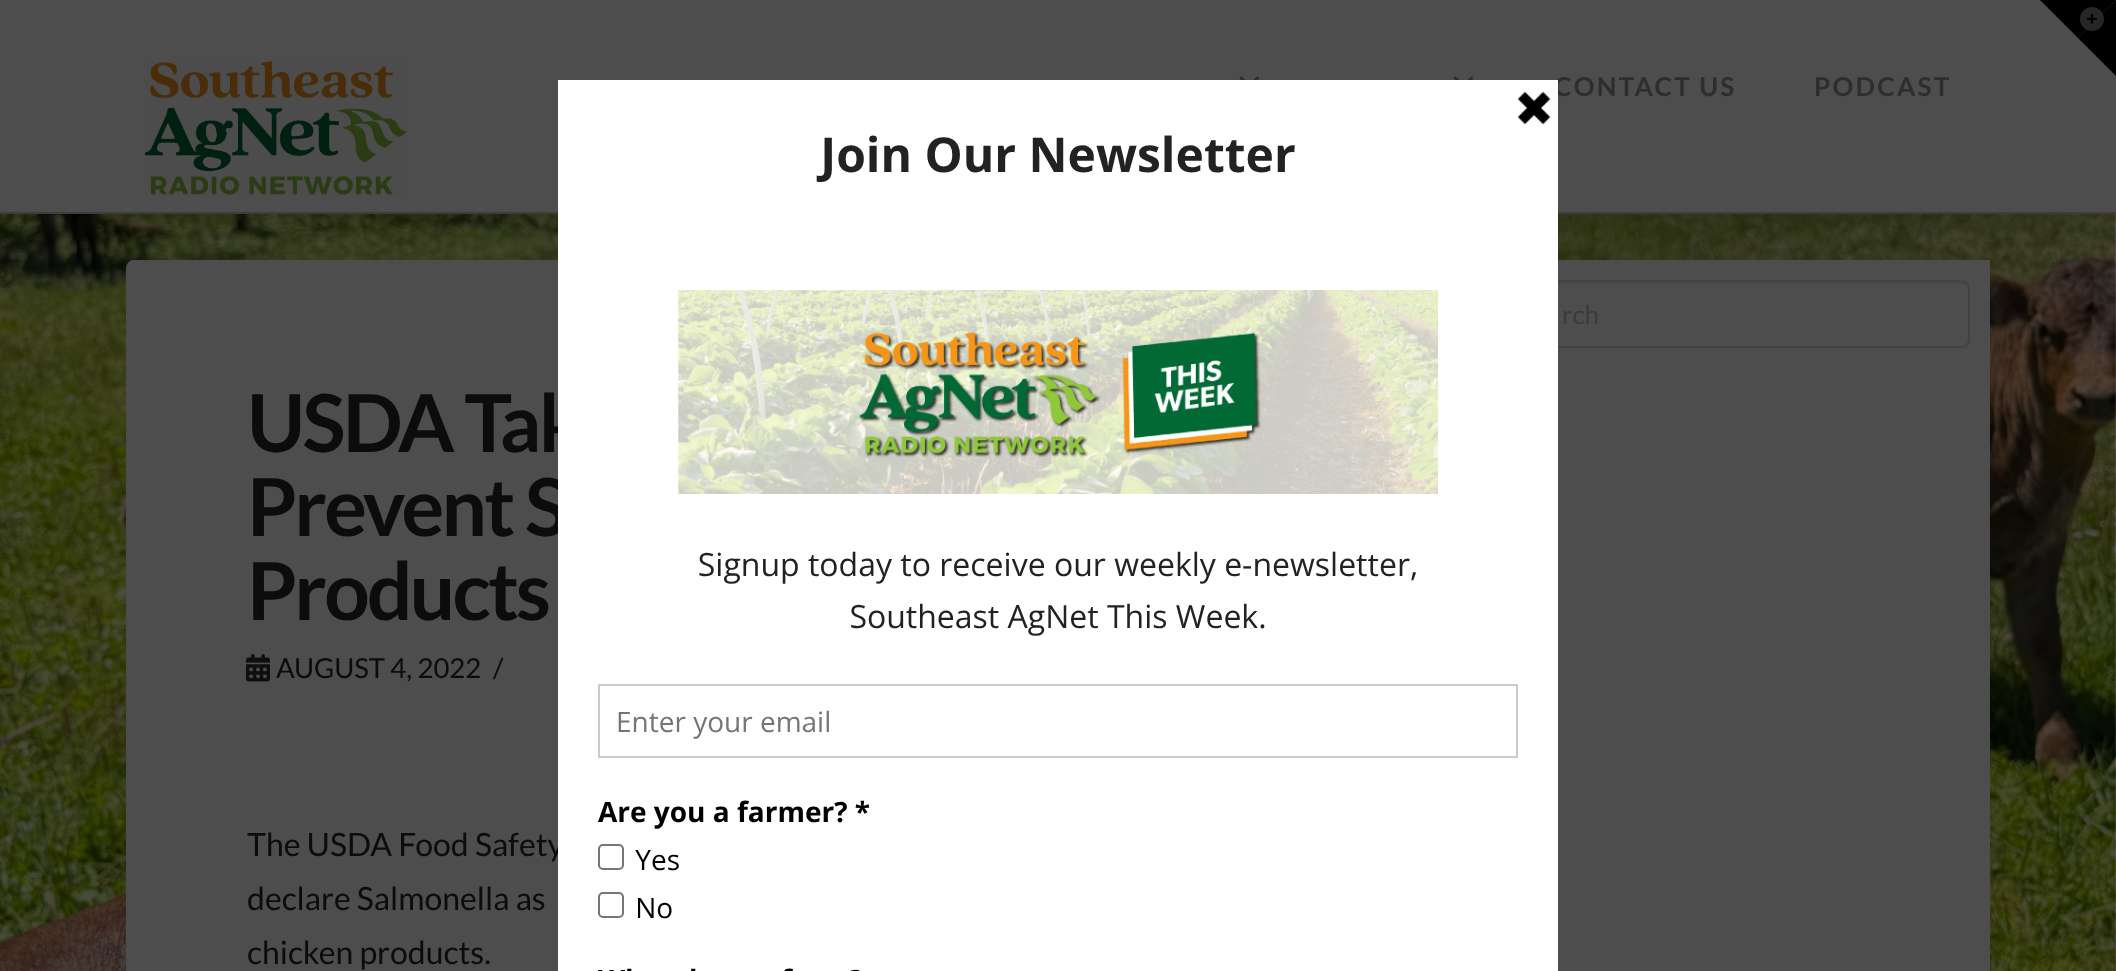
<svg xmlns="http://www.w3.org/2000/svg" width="2116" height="971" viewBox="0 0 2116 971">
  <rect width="100%" height="100%" fill="rgb(255,255,255)"/>
  <image x="0" y="214" width="2116" height="757" href="pic6.png"/>
  <rect x="0" y="4" width="2116" height="214" fill="rgba(0,0,0,0.13)" filter="blur(5.5px)"/>
  <rect x="0" y="0" width="2116" height="212" fill="rgb(77,77,77)"/>
  <path d="M2040 0H2116L2078 38Z" fill="rgb(0,0,0)"/>
  <path d="M2116 0V76L2078 38Z" fill="rgb(0,0,0)"/>
  <image x="2080" y="7" width="24" height="24" href="pic1.png"/>
  <rect x="0" y="212" width="2116" height="2" fill="rgb(61,61,61)"/>
  <image x="144" y="61" width="264" height="135" href="pic2.png"/>
  <image x="1239" y="76" width="21" height="4" href="pic3.png"/>
  <image x="1453" y="76" width="21" height="4" href="pic3.png"/>
  <g font-family="Lato" font-size="26" font-weight="bold" letter-spacing="2.25" fill="rgb(46,46,46)">
    <text x="1554" y="96">CONTACT US</text>
    <text x="1814" y="96">PODCAST</text>
  </g>
  <rect x="1558" y="260" width="432" height="711" fill="rgb(77,77,77)"/>
  <path d="M1468 284H1962C1965 284 1968 287 1968 290C1968 286 1967 282 1962 282H1468C1463 282 1462 286 1462 290C1462 287 1465 284 1468 284Z" fill="rgb(71,71,71)"/>
  <rect x="1461" y="281" width="508" height="66" rx="7" fill="none" stroke="rgb(66,66,66)" stroke-width="2"/>
  <text x="1562" y="324" font-family="Lato" font-size="26" fill="rgb(59,59,59)">rch</text>
  <rect x="126" y="260" width="1222" height="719" rx="8" fill="rgb(77,77,77)"/>
  <g font-family="Lato" font-size="80" font-weight="bold" letter-spacing="-2.75" fill="rgb(12,12,12)">
    <text>
      <tspan x="247" y="452">USDA Tak</tspan>
      <tspan x="247" y="536">Prevent S</tspan>
      <tspan x="247" y="620">Products</tspan>
    </text>
  </g>
  <image x="246" y="654" width="24" height="28" href="pic4.png"/>
  <g font-family="Lato" font-size="27.5" fill="rgb(12,12,12)">
    <text x="276" y="678">AUGUST 4, 2022</text>
    <text x="493" y="678">/</text>
  </g>
  <g font-family="Lato" font-size="32" fill="rgb(12,12,12)">
    <text>
      <tspan x="247" y="856">The USDA Food Safety</tspan>
      <tspan x="247" y="910">declare Salmonella as</tspan>
      <tspan x="247" y="964">chicken products.</tspan>
    </text>
  </g>
  <image x="558" y="80" width="1000" height="891" href="pic5.png"/>
</svg>
